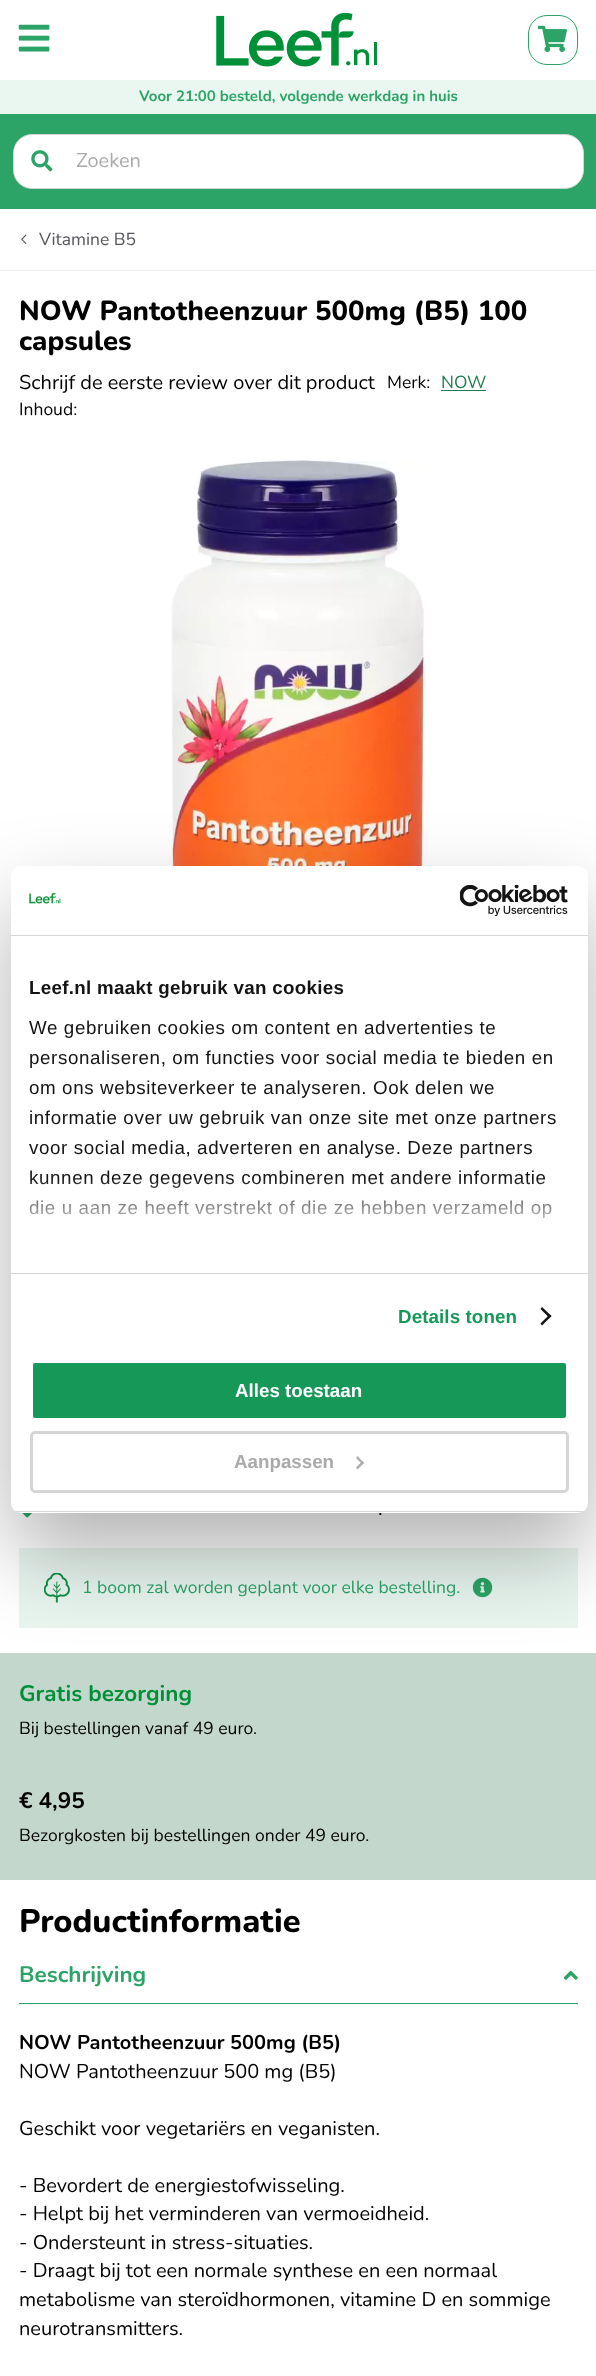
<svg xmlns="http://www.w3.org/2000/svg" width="596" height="2376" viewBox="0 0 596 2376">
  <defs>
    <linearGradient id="g1" gradientUnits="userSpaceOnUse" x1="291" y1="1272" x2="291" y2="1178"><stop offset="0" stop-color="rgb(255,255,255)"/><stop offset="0.5" stop-color="rgb(255,255,255)" stop-opacity="0.8"/><stop offset="1" stop-color="rgb(255,255,255)" stop-opacity="0"/></linearGradient>
    <clipPath id="clip1"><rect x="11" y="866" width="577" height="647" rx="10"/></clipPath>
  </defs>
  <rect width="100%" height="100%" fill="rgb(255,255,255)"/>
  <image x="18" y="24" width="32" height="28" href="pic1.png"/>
  <image x="216" y="13" width="161" height="54" href="pic2.png"/>
  <rect x="528.5" y="15.5" width="49" height="49" rx="18.5" fill="none" stroke="rgb(44,164,103)"/>
  <image x="538" y="25" width="29" height="27" href="pic3.png"/>
  <rect x="0" y="80" width="596" height="34" fill="rgb(234,246,240)"/>
  <text x="139" y="101" font-family="Nunito" font-size="15" font-weight="bold" fill="rgb(44,164,103)">Voor 21:00 besteld, volgende werkdag in huis</text>
  <rect x="0" y="114" width="596" height="95" fill="rgb(44,164,103)"/>
  <rect x="13.5" y="134.5" width="570" height="54" rx="18.5" fill="rgb(255,255,255)" stroke="rgb(213,213,213)"/>
  <image x="31" y="150" width="22" height="22" href="pic4.png"/>
  <text x="76" y="167" font-family="Nunito" font-size="20" fill="rgb(170,170,170)">Zoeken</text>
  <rect x="0" y="270" width="596" height="1" fill="rgb(238,238,238)"/>
  <image x="21" y="234" width="6" height="11" href="pic5.png"/>
  <text x="39" y="245" font-family="Nunito" font-size="17.5" fill="rgb(84,86,90)">Vitamine B5</text>
  <g font-family="Nunito" font-size="27.5" font-weight="800" fill="rgb(0,0,0)">
    <text>
      <tspan x="19" y="320">NOW Pantotheenzuur 500mg (B5) 100</tspan>
      <tspan x="19" y="350">capsules</tspan>
    </text>
  </g>
  <text x="19" y="389" font-family="Nunito" font-size="20" fill="rgb(0,0,0)">Schrijf de eerste review over dit product</text>
  <text x="387" y="388" font-family="Nunito" font-size="17.5" fill="rgb(0,0,0)">Merk:</text>
  <text x="441" y="388" font-family="Nunito" font-size="17.5" fill="rgb(33,124,78)">NOW</text>
  <rect x="441" y="390" width="45" height="1" fill="rgb(33,124,78)"/>
  <text x="19" y="415" font-family="Nunito" font-size="17.5" fill="rgb(0,0,0)">Inhoud:</text>
  <image x="169" y="460" width="259" height="406" href="pic6.png"/>
  <image x="22" y="1513" width="10" height="5" href="pic7.png"/>
  <text x="378" y="1515" font-family="Nunito" font-size="20" fill="rgb(0,0,0)">.</text>
  <rect x="19" y="1548" width="559" height="80" fill="rgb(233,246,240)"/>
  <image x="44" y="1573" width="26" height="30" href="pic8.png"/>
  <text x="82" y="1593" font-family="Nunito" font-size="17.5" fill="rgb(44,164,103)">1 boom zal worden geplant voor elke bestelling.</text>
  <image x="472" y="1577" width="21" height="21" href="pic9.png"/>
  <rect x="0" y="1653" width="596" height="227" fill="rgb(196,215,205)"/>
  <text x="19" y="1701" font-family="Nunito" font-size="22.5" font-weight="bold" fill="rgb(0,144,56)">Gratis bezorging</text>
  <text x="19" y="1734" font-family="Nunito" font-size="17.5" fill="rgb(0,0,0)">Bij bestellingen vanaf 49 euro.</text>
  <text x="19" y="1808" font-family="Nunito" font-size="22.5" font-weight="bold" fill="rgb(0,0,0)">€ 4,95</text>
  <text x="19" y="1841" font-family="Nunito" font-size="17.5" fill="rgb(0,0,0)">Bezorgkosten bij bestellingen onder 49 euro.</text>
  <text x="19" y="1932" font-family="Nunito" font-size="32.5" font-weight="800" fill="rgb(0,0,0)">Productinformatie</text>
  <text x="19" y="1982" font-family="Nunito" font-size="22.5" font-weight="bold" fill="rgb(44,164,103)">Beschrijving</text>
  <image x="563" y="1970" width="15" height="10" href="pic10.png"/>
  <rect x="19" y="2003" width="559" height="1" fill="rgb(44,164,103)"/>
  <text x="19" y="2049" font-family="Nunito" font-size="20" font-weight="bold" fill="rgb(0,0,0)">NOW Pantotheenzuur 500mg (B5)</text>
  <g font-family="Nunito" font-size="20" fill="rgb(0,0,0)">
    <text x="19" y="2078">NOW Pantotheenzuur 500 mg (B5)</text>
    <text x="19" y="2135">Geschikt voor vegetariërs en veganisten.</text>
    <text>
      <tspan x="19" y="2192">- Bevordert de energiestofwisseling.</tspan>
      <tspan x="19" y="2220">- Helpt bij het verminderen van vermoeidheid.</tspan>
      <tspan x="19" y="2249">- Ondersteunt in stress-situaties.</tspan>
      <tspan x="19" y="2277">- Draagt bij tot een normale synthese en een normaal</tspan>
      <tspan x="19" y="2306">metabolisme van steroïdhormonen, vitamine D en sommige</tspan>
      <tspan x="19" y="2335">neurotransmitters.</tspan>
    </text>
  </g>
  <rect x="11" y="906" width="577" height="647" rx="10" fill="rgba(0,0,0,0.3)" filter="blur(42.5px)"/>
  <rect x="11" y="866" width="577" height="647" rx="10" fill="rgb(255,255,255)"/>
  <rect x="11" y="935" width="577" height="1" fill="rgb(214,214,214)"/>
  <image x="29" y="892" width="32" height="12" href="pic11.png"/>
  <image x="460" y="885" width="108" height="31" href="pic12.png"/>
  <rect x="11" y="1273" width="577" height="1" fill="rgb(214,214,214)"/>
  <text x="29" y="994" font-family="Liberation Sans" font-size="18.75" font-weight="bold" letter-spacing="0.3" fill="rgb(20,20,20)">Leef.nl maakt gebruik van cookies</text>
  <g font-family="Liberation Sans" font-size="18.75" letter-spacing="0.62" fill="rgb(20,20,20)">
    <text>
      <tspan x="29" y="1034">We gebruiken cookies om content en advertenties te</tspan>
      <tspan x="29" y="1064">personaliseren, om functies voor social media te bieden en</tspan>
      <tspan x="29" y="1094">om ons websiteverkeer te analyseren. Ook delen we</tspan>
      <tspan x="29" y="1124">informatie over uw gebruik van onze site met onze partners</tspan>
      <tspan x="29" y="1154">voor social media, adverteren en analyse. Deze partners</tspan>
      <tspan x="29" y="1184">kunnen deze gegevens combineren met andere informatie</tspan>
      <tspan x="29" y="1214">die u aan ze heeft verstrekt of die ze hebben verzameld op</tspan>
    </text>
  </g>
  <rect x="29" y="1179" width="523" height="39" fill="url(#g1)"/>
  <text x="398" y="1323" font-family="Liberation Sans" font-size="18.75" font-weight="bold" letter-spacing="0.1" fill="rgb(22,152,89)">Details tonen</text>
  <path d="M542 1307L551.5 1316L549.5 1318L540.5 1309Z" fill="rgb(20,20,20)"/>
  <path d="M549.5 1314.5L551.5 1316L542 1325.5L540.5 1323.5Z" fill="rgb(20,20,20)"/>
  <g clip-path="url(#clip1)">
    <rect x="11" y="1511" width="577" height="1" fill="rgb(214,214,214)"/>
  </g>
  <rect x="31.5" y="1361.5" width="536" height="58" rx="3.5" fill="rgb(22,152,89)" stroke="rgb(255,255,255)" stroke-width="3"/>
  <text x="235" y="1397" font-family="Liberation Sans" font-size="18.75" font-weight="bold" fill="rgb(255,255,255)">Alles toestaan</text>
  <rect x="31.5" y="1432.5" width="536" height="59" rx="3.5" fill="none" stroke="rgb(213,213,213)" stroke-width="3"/>
  <text x="234" y="1468" font-family="Liberation Sans" font-size="18.75" font-weight="bold" fill="rgb(170,170,170)">Aanpassen</text>
  <path d="M357.5 1456L364 1463L362.5 1464.5L356 1458Z" fill="rgb(173,173,173)"/>
  <path d="M362.5 1461L364 1463L357.5 1469.5L356 1467.5Z" fill="rgb(173,173,173)"/>
</svg>
